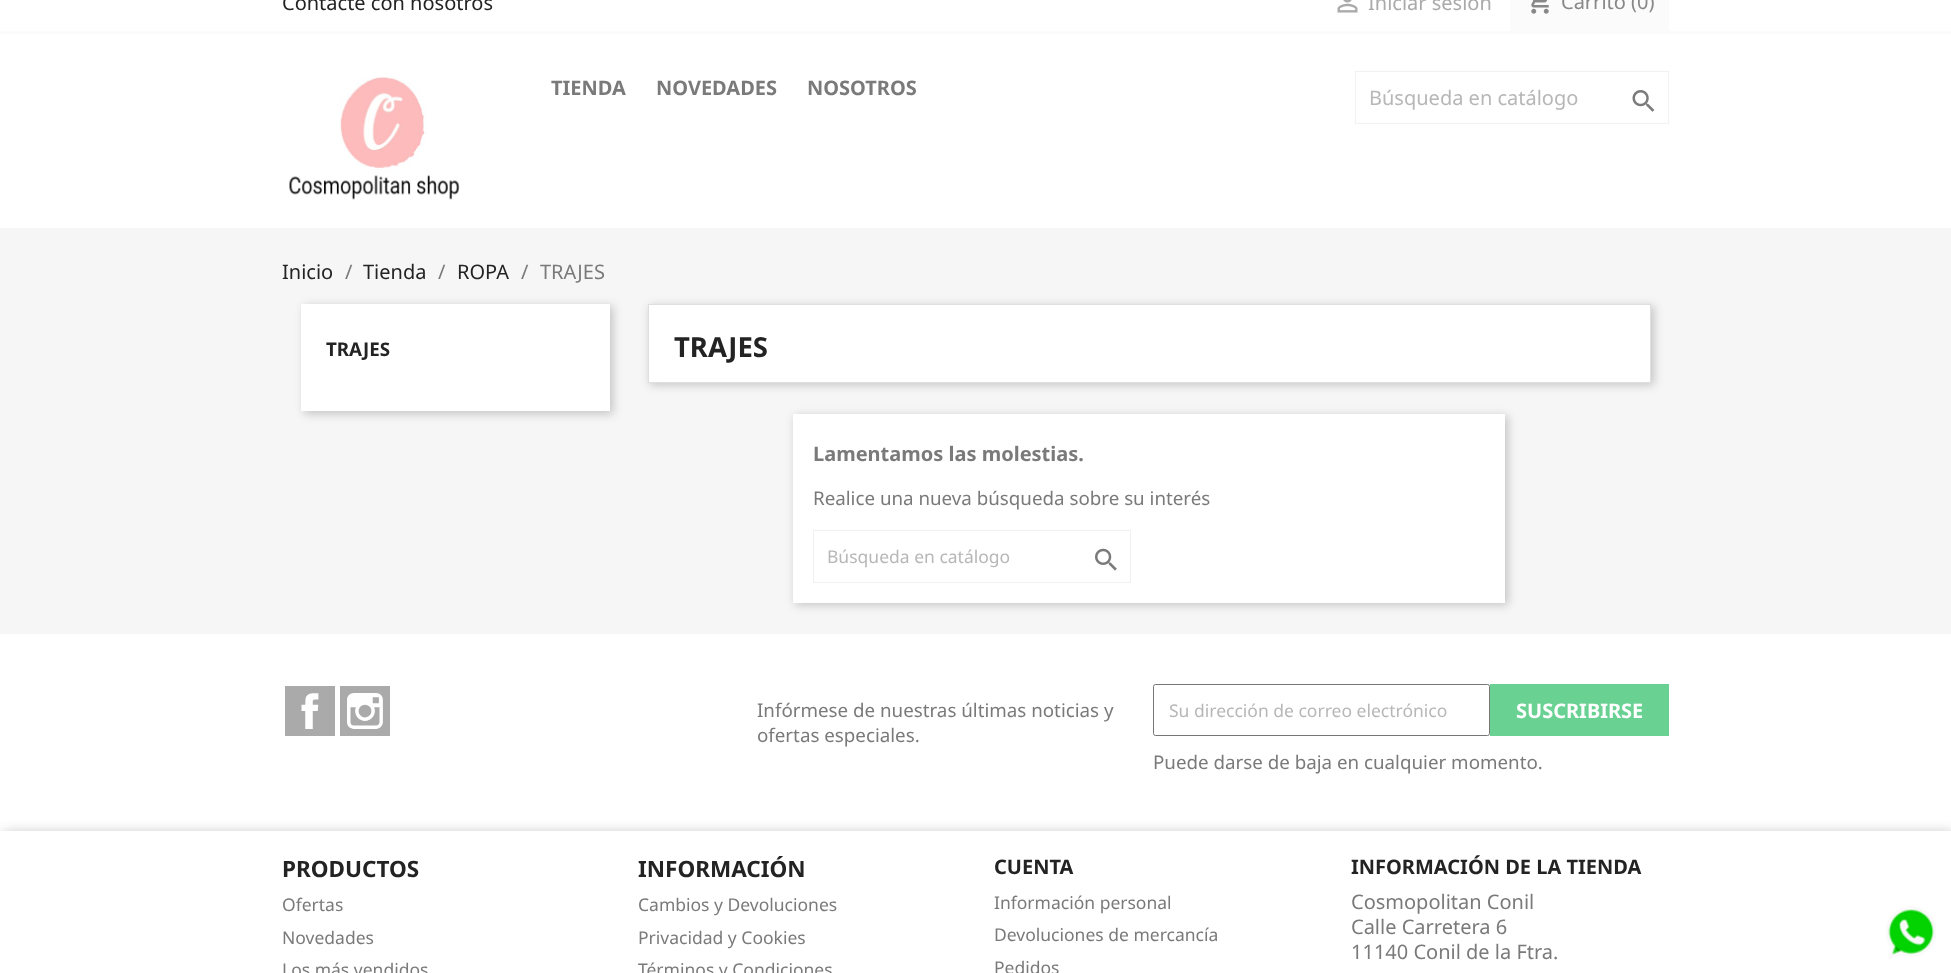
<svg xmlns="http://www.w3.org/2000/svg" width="1951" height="973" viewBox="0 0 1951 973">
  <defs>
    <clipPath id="clip1"><path d="M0 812H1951V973H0ZM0 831H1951V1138H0Z" clip-rule="evenodd"/></clipPath>
  </defs>
  <rect width="100%" height="100%" fill="rgb(255,255,255)"/>
  <rect x="0" y="31" width="1951" height="3" fill="rgb(251,251,251)"/>
  <text x="282" y="10" font-family="Noto Sans" font-size="20" fill="rgb(35,35,35)">Contacte con nosotros</text>
  <image x="1337" y="0" width="21" height="13" href="pic1.png"/>
  <text x="1368" y="10" font-family="Noto Sans" font-size="20" fill="rgb(170,170,170)">Iniciar sesión</text>
  <rect x="1510" y="0" width="159" height="31" fill="rgb(251,251,251)"/>
  <image x="1531" y="0" width="18" height="14" href="pic2.png"/>
  <text x="1561" y="9" font-family="Noto Sans" font-size="20" fill="rgb(136,136,136)">Carrito (0)</text>
  <image x="289" y="76" width="171" height="124" href="pic3.png"/>
  <g font-family="Noto Sans" font-size="20" font-weight="bold" fill="rgb(122,122,122)">
    <text x="551" y="95">TIENDA</text>
    <text x="656" y="95">NOVEDADES</text>
    <text x="807" y="95">NOSOTROS</text>
  </g>
  <rect x="1355.5" y="71.5" width="313" height="52" fill="none" stroke="rgb(241,241,241)"/>
  <text x="1369" y="105" font-family="Noto Sans" font-size="20" fill="rgb(183,183,183)">Búsqueda en catálogo</text>
  <image x="1632" y="90" width="23" height="22" href="pic4.png"/>
  <rect x="0" y="228" width="1951" height="406" fill="rgb(246,246,246)"/>
  <text x="282" y="279" font-family="Noto Sans" font-size="20" fill="rgb(35,35,35)">Inicio</text>
  <text x="345" y="279" font-family="Noto Sans" font-size="20" fill="rgb(122,122,122)">/</text>
  <text x="363" y="279" font-family="Noto Sans" font-size="20" fill="rgb(35,35,35)">Tienda</text>
  <text x="438" y="279" font-family="Noto Sans" font-size="20" fill="rgb(122,122,122)">/</text>
  <text x="457" y="279" font-family="Noto Sans" font-size="20" fill="rgb(35,35,35)">ROPA</text>
  <g font-family="Noto Sans" font-size="20" fill="rgb(122,122,122)">
    <text x="521" y="279">/</text>
    <text x="540" y="279">TRAJES</text>
  </g>
  <rect x="304" y="306" width="309" height="108" fill="rgba(0,0,0,0.2)" filter="blur(5px)"/>
  <rect x="301" y="304" width="309" height="107" fill="rgb(255,255,255)"/>
  <text x="326" y="356" font-family="Noto Sans" font-size="18.75" font-weight="bold" fill="rgb(35,35,35)">TRAJES</text>
  <rect x="650" y="306" width="1004" height="79" fill="rgba(0,0,0,0.2)" filter="blur(5px)"/>
  <rect x="648.5" y="304.5" width="1002" height="78" fill="rgb(255,255,255)" stroke="rgb(223,223,223)"/>
  <text x="674" y="357" font-family="Noto Sans" font-size="27.5" font-weight="bold" fill="rgb(35,35,35)">TRAJES</text>
  <rect x="795" y="416" width="713" height="189" fill="rgba(0,0,0,0.2)" filter="blur(5px)"/>
  <rect x="793" y="414" width="712" height="189" fill="rgb(255,255,255)"/>
  <text x="813" y="461" font-family="Noto Sans" font-size="20" font-weight="bold" fill="rgb(122,122,122)">Lamentamos las molestias.</text>
  <text x="813" y="505" font-family="Noto Sans" font-size="18.75" fill="rgb(122,122,122)">Realice una nueva búsqueda sobre su interés</text>
  <rect x="813.5" y="530.5" width="317" height="52" fill="none" stroke="rgb(241,241,241)"/>
  <text x="827" y="563" font-family="Noto Sans" font-size="17.5" fill="rgb(183,183,183)">Búsqueda en catálogo</text>
  <image x="1095" y="548" width="22" height="23" href="pic5.png"/>
  <rect x="285" y="686" width="50" height="50" fill="rgb(170,170,170)"/>
  <image x="301" y="693" width="18" height="36" href="pic6.png"/>
  <rect x="340" y="686" width="50" height="50" fill="rgb(170,170,170)"/>
  <image x="347" y="693" width="36" height="36" href="pic7.png"/>
  <g font-family="Noto Sans" font-size="18.75" fill="rgb(122,122,122)">
    <text>
      <tspan x="757" y="717">Infórmese de nuestras últimas noticias y</tspan>
      <tspan x="757" y="742">ofertas especiales.</tspan>
    </text>
  </g>
  <rect x="1153.5" y="684.5" width="336" height="51" rx="2" fill="none" stroke="rgb(118,118,118)"/>
  <text x="1169" y="717" font-family="Noto Sans" font-size="17.5" fill="rgb(183,183,183)">Su dirección de correo electrónico</text>
  <rect x="1490" y="684" width="179" height="52" fill="rgb(105,209,146)"/>
  <text x="1516" y="718" font-family="Noto Sans" font-size="20" font-weight="bold" fill="rgb(255,255,255)">SUSCRIBIRSE</text>
  <text x="1153" y="769" font-family="Noto Sans" font-size="18.75" fill="rgb(122,122,122)">Puede darse de baja en cualquier momento.</text>
  <g clip-path="url(#clip1)">
    <rect x="3" y="834" width="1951" height="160" fill="rgba(0,0,0,0.3)" filter="blur(7px)"/>
  </g>
  <text x="282" y="877" font-family="Noto Sans" font-size="22.5" font-weight="bold" fill="rgb(35,35,35)">PRODUCTOS</text>
  <g font-family="Noto Sans" font-size="17.5" fill="rgb(122,122,122)">
    <text>
      <tspan x="282" y="911">Ofertas</tspan>
      <tspan x="282" y="944">Novedades</tspan>
      <tspan x="282" y="976">Los más vendidos</tspan>
    </text>
  </g>
  <text x="638" y="877" font-family="Noto Sans" font-size="22.5" font-weight="bold" fill="rgb(35,35,35)">INFORMACIÓN</text>
  <g font-family="Noto Sans" font-size="17.5" fill="rgb(122,122,122)">
    <text>
      <tspan x="638" y="911">Cambios y Devoluciones</tspan>
      <tspan x="638" y="944">Privacidad y Cookies</tspan>
      <tspan x="638" y="976">Términos y Condiciones</tspan>
    </text>
  </g>
  <text x="994" y="874" font-family="Noto Sans" font-size="20" font-weight="bold" fill="rgb(35,35,35)">CUENTA</text>
  <g font-family="Noto Sans" font-size="17.5" fill="rgb(122,122,122)">
    <text>
      <tspan x="994" y="909">Información personal</tspan>
      <tspan x="994" y="941">Devoluciones de mercancía</tspan>
      <tspan x="994" y="974">Pedidos</tspan>
    </text>
  </g>
  <text x="1351" y="874" font-family="Noto Sans" font-size="20" font-weight="bold" fill="rgb(35,35,35)">INFORMACIÓN DE LA TIENDA</text>
  <g font-family="Noto Sans" font-size="20" fill="rgb(122,122,122)">
    <text>
      <tspan x="1351" y="909">Cosmopolitan Conil</tspan>
      <tspan x="1351" y="934">Calle Carretera 6</tspan>
      <tspan x="1351" y="959">11140 Conil de la Ftra.</tspan>
    </text>
  </g>
  <image x="1886" y="906" width="50" height="53" href="pic8.png"/>
</svg>
